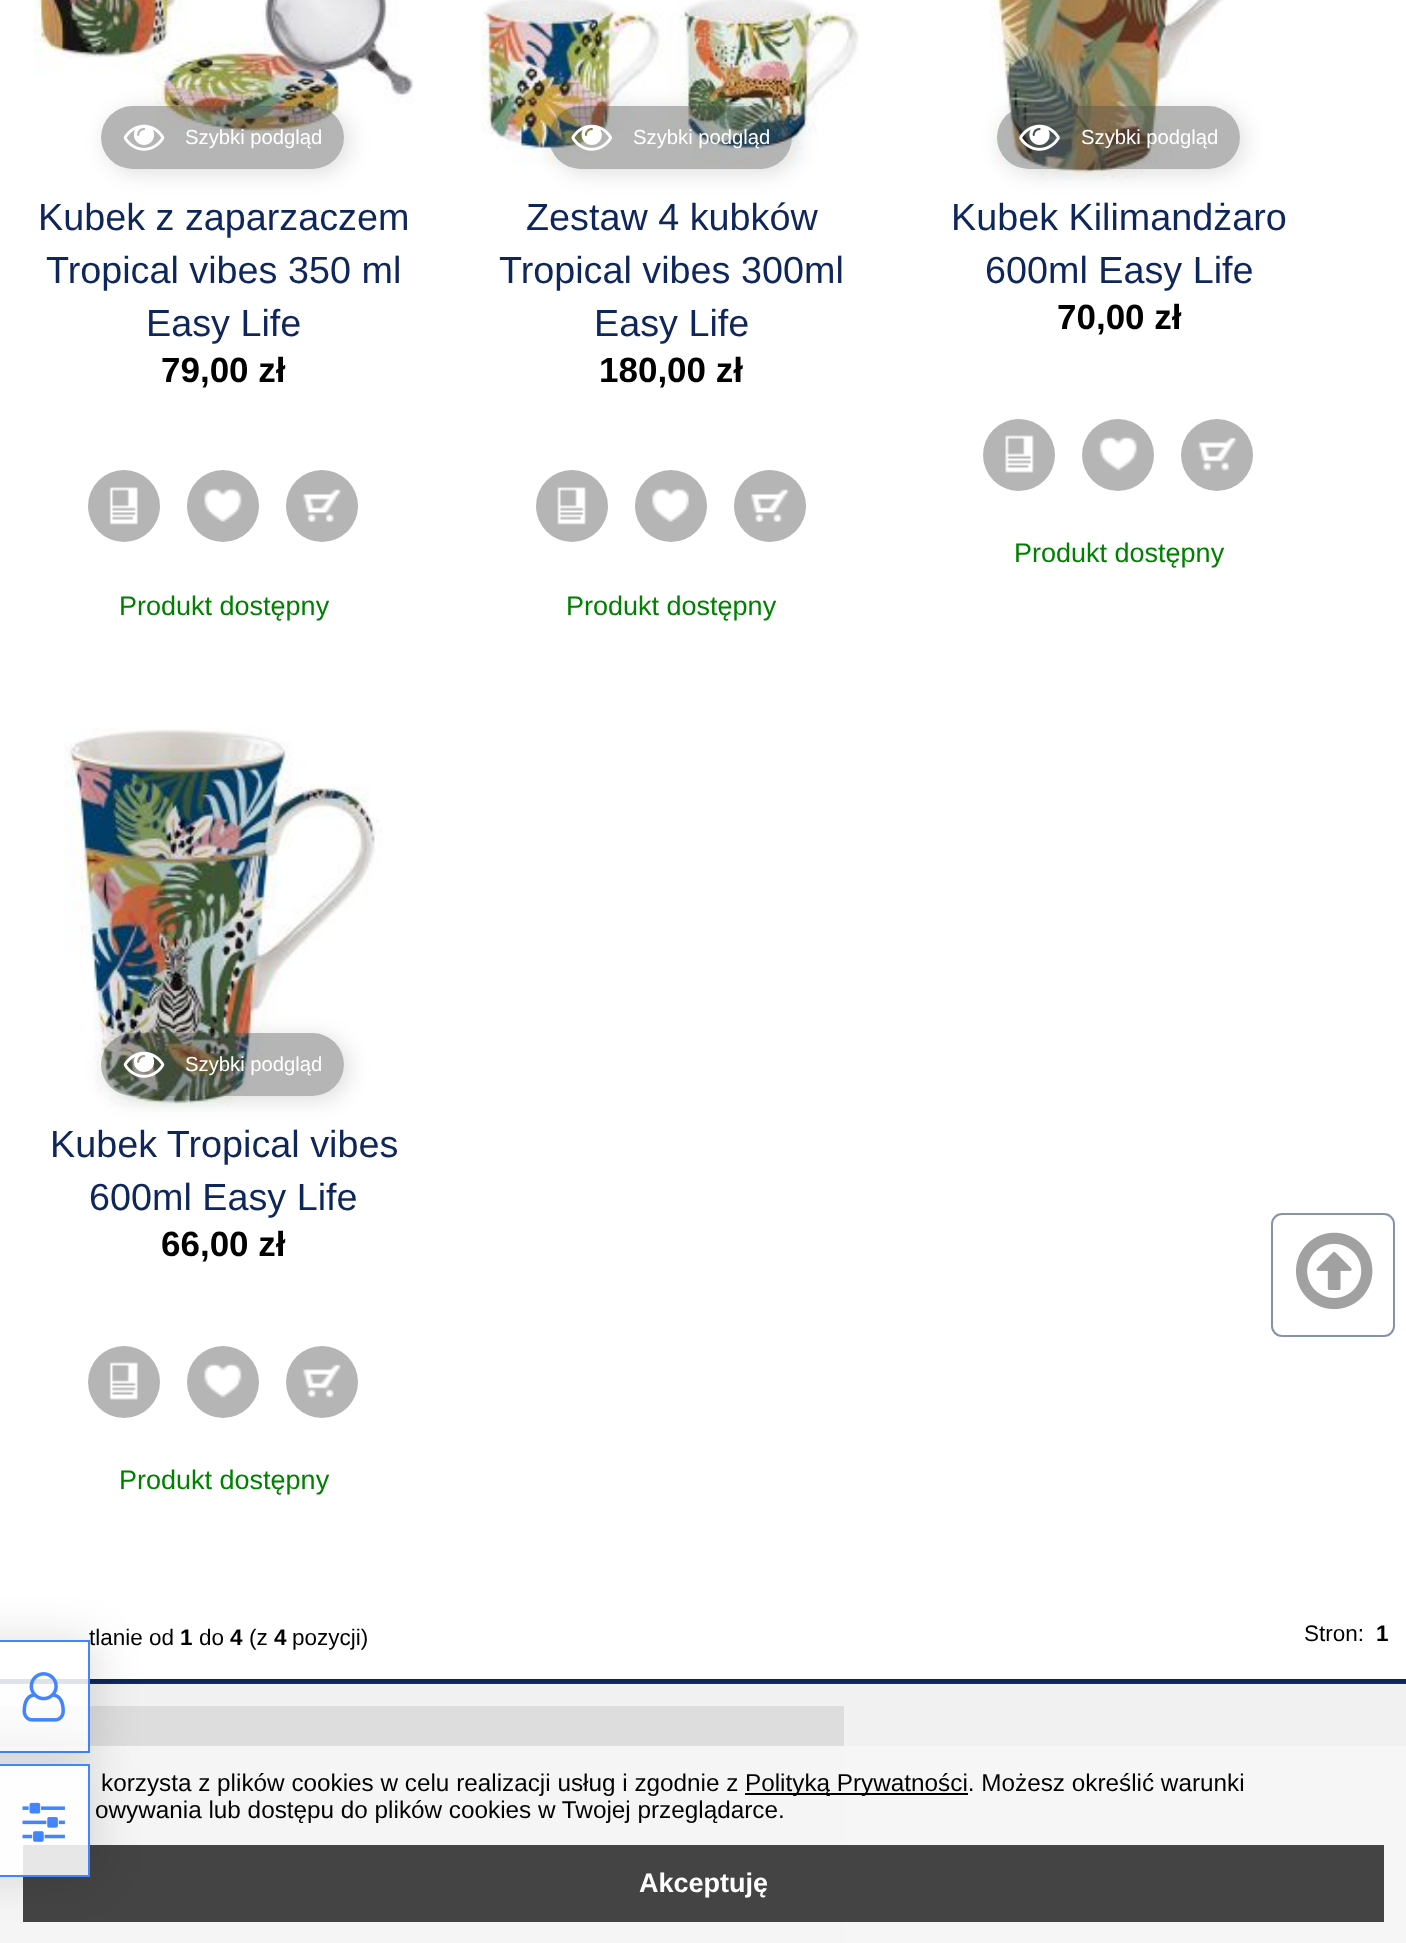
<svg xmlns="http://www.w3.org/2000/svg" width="1406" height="1943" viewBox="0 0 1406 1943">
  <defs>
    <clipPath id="clip1"><path d="M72 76H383V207H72ZM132.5 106H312.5C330 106 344 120 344 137.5C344 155 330 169 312.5 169H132.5C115 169 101 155 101 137.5C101 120 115 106 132.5 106Z" clip-rule="evenodd"/></clipPath>
    <clipPath id="clip2"><path d="M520 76H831V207H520ZM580.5 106H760.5C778 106 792 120 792 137.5C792 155 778 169 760.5 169H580.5C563 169 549 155 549 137.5C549 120 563 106 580.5 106Z" clip-rule="evenodd"/></clipPath>
    <clipPath id="clip3"><path d="M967 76H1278V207H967ZM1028.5 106H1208.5C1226 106 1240 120 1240 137.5C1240 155 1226 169 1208.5 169H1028.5C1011 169 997 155 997 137.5C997 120 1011 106 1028.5 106Z" clip-rule="evenodd"/></clipPath>
    <clipPath id="clip4"><path d="M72 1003H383V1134H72ZM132.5 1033H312.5C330 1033 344 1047 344 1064.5C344 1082 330 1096 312.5 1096H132.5C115 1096 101 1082 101 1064.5C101 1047 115 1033 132.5 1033Z" clip-rule="evenodd"/></clipPath>
    <clipPath id="clip5"><path d="M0 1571H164V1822H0ZM-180 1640H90V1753H-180Z" clip-rule="evenodd"/></clipPath>
    <clipPath id="clip6"><path d="M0 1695H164V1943H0ZM-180 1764H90V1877H-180Z" clip-rule="evenodd"/></clipPath>
  </defs>
  <rect width="100%" height="100%" fill="rgb(255,255,255)"/>
  <rect x="0" y="1684" width="1406" height="259" fill="rgb(241,241,241)"/>
  <image x="34" y="0" width="380" height="135" href="pic1.png"/>
  <g clip-path="url(#clip1)">
    <rect x="106" y="110" width="243" height="63" rx="31.5" fill="rgba(0,0,0,0.13)" filter="blur(11px)"/>
  </g>
  <rect x="101" y="106" width="243" height="63" rx="31.5" fill="rgba(70,70,70,0.4)"/>
  <image x="123" y="124" width="42" height="27" href="pic2.png"/>
  <text x="185" y="144" font-family="Liberation Sans" font-size="20.25" fill="rgb(255,255,255)">Szybki podgląd</text>
  <g font-family="Liberation Sans" font-size="37.75" fill="rgb(15,38,90)">
    <text x="38" y="230">Kubek z zaparzaczem</text>
    <text x="46" y="283">Tropical vibes 350 ml</text>
    <text x="146" y="336">Easy Life</text>
  </g>
  <text x="161" y="382" font-family="Liberation Sans" font-size="35" font-weight="bold" fill="rgb(0,0,0)">79,00 zł</text>
  <circle cx="124" cy="506" r="36" fill="rgb(181,181,181)"/>
  <image x="109" y="487" width="29" height="38" href="pic3.png"/>
  <circle cx="223" cy="506" r="36" fill="rgb(181,181,181)"/>
  <image x="204" y="488" width="38" height="34" href="pic4.png"/>
  <circle cx="322" cy="506" r="36" fill="rgb(181,181,181)"/>
  <image x="303" y="489" width="38" height="34" href="pic5.png"/>
  <text x="119" y="615" font-family="Liberation Sans" font-size="27" fill="rgb(0,128,0)">Produkt dostępny</text>
  <image x="481" y="0" width="378" height="165" href="pic6.png"/>
  <g clip-path="url(#clip2)">
    <rect x="554" y="110" width="243" height="63" rx="31.5" fill="rgba(0,0,0,0.13)" filter="blur(11px)"/>
  </g>
  <rect x="549" y="106" width="243" height="63" rx="31.5" fill="rgba(70,70,70,0.4)"/>
  <image x="571" y="124" width="41" height="27" href="pic7.png"/>
  <text x="633" y="144" font-family="Liberation Sans" font-size="20.25" fill="rgb(255,255,255)">Szybki podgląd</text>
  <g font-family="Liberation Sans" font-size="37.75" fill="rgb(15,38,90)">
    <text x="526" y="230">Zestaw 4 kubków</text>
    <text x="499" y="283">Tropical vibes 300ml</text>
    <text x="594" y="336">Easy Life</text>
  </g>
  <text x="599" y="382" font-family="Liberation Sans" font-size="35" font-weight="bold" fill="rgb(0,0,0)">180,00 zł</text>
  <circle cx="572" cy="506" r="36" fill="rgb(181,181,181)"/>
  <image x="557" y="487" width="29" height="38" href="pic8.png"/>
  <circle cx="671" cy="506" r="36" fill="rgb(181,181,181)"/>
  <image x="652" y="488" width="37" height="34" href="pic9.png"/>
  <circle cx="770" cy="506" r="36" fill="rgb(181,181,181)"/>
  <image x="751" y="489" width="38" height="34" href="pic10.png"/>
  <text x="566" y="615" font-family="Liberation Sans" font-size="27" fill="rgb(0,128,0)">Produkt dostępny</text>
  <image x="990" y="0" width="234" height="180" href="pic11.png"/>
  <g clip-path="url(#clip3)">
    <rect x="1001" y="110" width="243" height="63" rx="31.5" fill="rgba(0,0,0,0.13)" filter="blur(11px)"/>
  </g>
  <rect x="997" y="106" width="243" height="63" rx="31.5" fill="rgba(70,70,70,0.4)"/>
  <image x="1019" y="124" width="41" height="27" href="pic12.png"/>
  <text x="1081" y="144" font-family="Liberation Sans" font-size="20.25" fill="rgb(255,255,255)">Szybki podgląd</text>
  <g font-family="Liberation Sans" font-size="37.75" fill="rgb(15,38,90)">
    <text x="951" y="230">Kubek Kilimandżaro</text>
    <text x="985" y="283">600ml Easy Life</text>
  </g>
  <text x="1057" y="329" font-family="Liberation Sans" font-size="35" font-weight="bold" fill="rgb(0,0,0)">70,00 zł</text>
  <circle cx="1019" cy="455" r="36" fill="rgb(181,181,181)"/>
  <image x="1005" y="435" width="29" height="38" href="pic13.png"/>
  <circle cx="1118" cy="455" r="36" fill="rgb(181,181,181)"/>
  <image x="1099" y="436" width="38" height="35" href="pic14.png"/>
  <circle cx="1217" cy="455" r="36" fill="rgb(181,181,181)"/>
  <image x="1198" y="437" width="38" height="34" href="pic15.png"/>
  <text x="1014" y="562" font-family="Liberation Sans" font-size="27" fill="rgb(0,128,0)">Produkt dostępny</text>
  <image x="63" y="727" width="320" height="380" href="pic16.png"/>
  <g clip-path="url(#clip4)">
    <rect x="106" y="1037" width="243" height="63" rx="31.5" fill="rgba(0,0,0,0.13)" filter="blur(11px)"/>
  </g>
  <rect x="101" y="1033" width="243" height="63" rx="31.5" fill="rgba(70,70,70,0.4)"/>
  <image x="123" y="1051" width="42" height="27" href="pic17.png"/>
  <text x="185" y="1071" font-family="Liberation Sans" font-size="20.25" fill="rgb(255,255,255)">Szybki podgląd</text>
  <g font-family="Liberation Sans" font-size="37.75" fill="rgb(15,38,90)">
    <text x="50" y="1157">Kubek Tropical vibes</text>
    <text x="89" y="1210">600ml Easy Life</text>
  </g>
  <text x="161" y="1256" font-family="Liberation Sans" font-size="35" font-weight="bold" fill="rgb(0,0,0)">66,00 zł</text>
  <circle cx="124" cy="1382" r="36" fill="rgb(181,181,181)"/>
  <image x="109" y="1362" width="29" height="38" href="pic18.png"/>
  <circle cx="223" cy="1382" r="36" fill="rgb(181,181,181)"/>
  <image x="204" y="1363" width="38" height="35" href="pic19.png"/>
  <circle cx="322" cy="1382" r="36" fill="rgb(181,181,181)"/>
  <image x="303" y="1364" width="38" height="34" href="pic20.png"/>
  <text x="119" y="1489" font-family="Liberation Sans" font-size="27" fill="rgb(0,128,0)">Produkt dostępny</text>
  <text x="89" y="1645" font-family="Liberation Sans" font-size="22.5" fill="rgb(0,0,0)">tlanie od</text>
  <text x="180" y="1645" font-family="Liberation Sans" font-size="22.5" font-weight="bold" fill="rgb(0,0,0)">1</text>
  <text x="199" y="1645" font-family="Liberation Sans" font-size="22.5" fill="rgb(0,0,0)">do</text>
  <text x="230" y="1645" font-family="Liberation Sans" font-size="22.5" font-weight="bold" fill="rgb(0,0,0)">4</text>
  <text x="249" y="1645" font-family="Liberation Sans" font-size="22.5" fill="rgb(0,0,0)">(z</text>
  <text x="274" y="1645" font-family="Liberation Sans" font-size="22.5" font-weight="bold" fill="rgb(0,0,0)">4</text>
  <g font-family="Liberation Sans" font-size="22.5" fill="rgb(0,0,0)">
    <text x="292" y="1645">pozycji)</text>
    <text x="1304" y="1641">Stron:</text>
  </g>
  <text x="1376" y="1641" font-family="Liberation Sans" font-size="22.5" font-weight="bold" fill="rgb(0,0,0)">1</text>
  <rect x="1272" y="1214" width="122" height="122" rx="10" fill="none" stroke="rgb(135,147,173)" stroke-width="2"/>
  <image x="1296" y="1232" width="77" height="78" href="pic21.png"/>
  <rect x="0" y="1679" width="1406" height="4" fill="rgb(15,38,90)"/>
  <rect x="0" y="1683" width="1406" height="1" fill="rgb(25,45,92)"/>
  <rect x="0" y="1706" width="844" height="76" fill="rgb(221,221,221)"/>
  <rect x="0" y="1784" width="844" height="77" fill="rgb(221,221,221)"/>
  <rect x="0" y="1863" width="844" height="77" fill="rgb(221,221,221)"/>
  <rect x="0" y="1942" width="844" height="1" fill="rgb(221,221,221)"/>
  <rect x="0" y="1746" width="1406" height="197" fill="rgba(245,245,245,0.95)"/>
  <g clip-path="url(#clip5)">
    <rect x="-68" y="1640" width="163" height="113" fill="rgba(0,0,0,0.13)" filter="blur(22.5px)"/>
  </g>
  <rect x="0" y="1679" width="88" height="72" fill="rgba(255,255,255,0.87)"/>
  <rect x="-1" y="1641" width="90" height="111" fill="none" stroke="rgb(67,132,255)" stroke-width="2"/>
  <image x="22" y="1672" width="43" height="50" href="pic22.png"/>
  <rect x="23" y="1845" width="1361" height="77" fill="rgb(68,68,68)"/>
  <g clip-path="url(#clip6)">
    <rect x="-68" y="1764" width="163" height="113" fill="rgba(0,0,0,0.13)" filter="blur(22.5px)"/>
  </g>
  <rect x="-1" y="1765" width="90" height="111" fill="rgba(255,255,255,0.87)" stroke="rgb(67,132,255)" stroke-width="2"/>
  <image x="22" y="1802" width="43" height="40" href="pic23.png"/>
  <text x="101" y="1791" font-family="Liberation Sans" font-size="24.3" fill="rgb(0,0,0)">korzysta z plików cookies w celu realizacji usług i zgodnie z</text>
  <rect x="745" y="1793" width="223" height="2" fill="rgb(0,0,0)"/>
  <g font-family="Liberation Sans" font-size="24.3" fill="rgb(0,0,0)">
    <text x="745" y="1791">Polityką Prywatności. Możesz określić warunki</text>
    <text x="95" y="1818">owywania lub dostępu do plików cookies w Twojej przeglądarce.</text>
  </g>
  <text x="639" y="1892" font-family="Liberation Sans" font-size="27" font-weight="bold" fill="rgb(255,255,255)">Akceptuję</text>
</svg>
